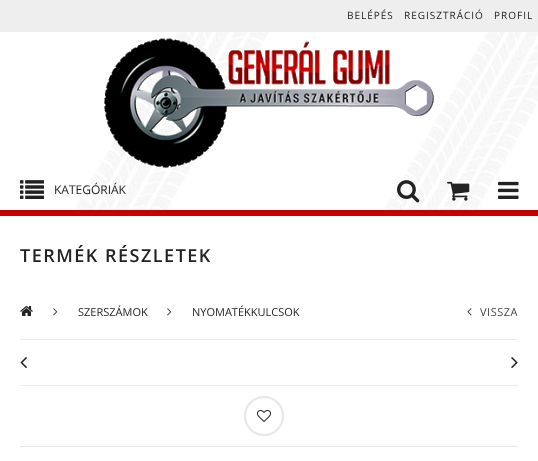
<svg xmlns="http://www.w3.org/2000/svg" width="538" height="461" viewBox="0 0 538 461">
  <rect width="100%" height="100%" fill="rgb(255,255,255)"/>
  <image x="76" y="32" width="462" height="178" href="pic1.png"/>
  <rect x="0" y="0" width="538" height="32" fill="rgb(238,238,238)"/>
  <g font-family="Open Sans" font-size="10" letter-spacing="1" fill="rgb(34,34,34)">
    <text x="347" y="19">BELÉPÉS</text>
    <text x="404" y="19">REGISZTRÁCIÓ</text>
    <text x="494" y="19">PROFIL</text>
  </g>
  <image x="104" y="38" width="330" height="130" href="pic2.png"/>
  <rect x="0" y="210" width="538" height="6" fill="rgb(198,0,0)"/>
  <image x="20" y="180" width="24" height="19" href="pic3.png"/>
  <text x="54" y="194" font-family="Open Sans" font-size="12" fill="rgb(34,34,34)">KATEGÓRIÁK</text>
  <image x="397" y="180" width="23" height="23" href="pic4.png"/>
  <image x="447" y="181" width="23" height="20" href="pic5.png"/>
  <image x="498" y="181" width="21" height="18" href="pic6.png"/>
  <text x="20" y="262" font-family="Open Sans" font-size="18" font-weight="600" letter-spacing="1.5" fill="rgb(34,34,34)">TERMÉK RÉSZLETEK</text>
  <image x="20" y="306" width="13" height="10" href="pic7.png"/>
  <image x="53" y="308" width="5" height="8" href="pic8.png"/>
  <text x="78" y="316" font-family="Open Sans" font-size="11" fill="rgb(34,34,34)">SZERSZÁMOK</text>
  <image x="167" y="308" width="5" height="8" href="pic8.png"/>
  <text x="192" y="316" font-family="Open Sans" font-size="11" fill="rgb(34,34,34)">NYOMATÉKKULCSOK</text>
  <image x="467" y="308" width="5" height="8" href="pic9.png"/>
  <text x="480" y="316" font-family="Open Sans" font-size="11" letter-spacing="0.5" fill="rgb(68,68,68)">VISSZA</text>
  <rect x="20" y="339" width="498" height="1" fill="rgb(236,234,234)"/>
  <image x="20" y="357" width="7" height="12" href="pic10.png"/>
  <image x="511" y="357" width="7" height="12" href="pic11.png"/>
  <rect x="20" y="385" width="498" height="1" fill="rgb(236,234,234)"/>
  <rect x="20" y="446" width="498" height="1" fill="rgb(231,231,231)"/>
  <circle cx="264" cy="416" r="19" fill="none" stroke="rgb(231,231,231)" stroke-width="2"/>
  <image x="257" y="410" width="14" height="12" href="pic12.png"/>
</svg>
